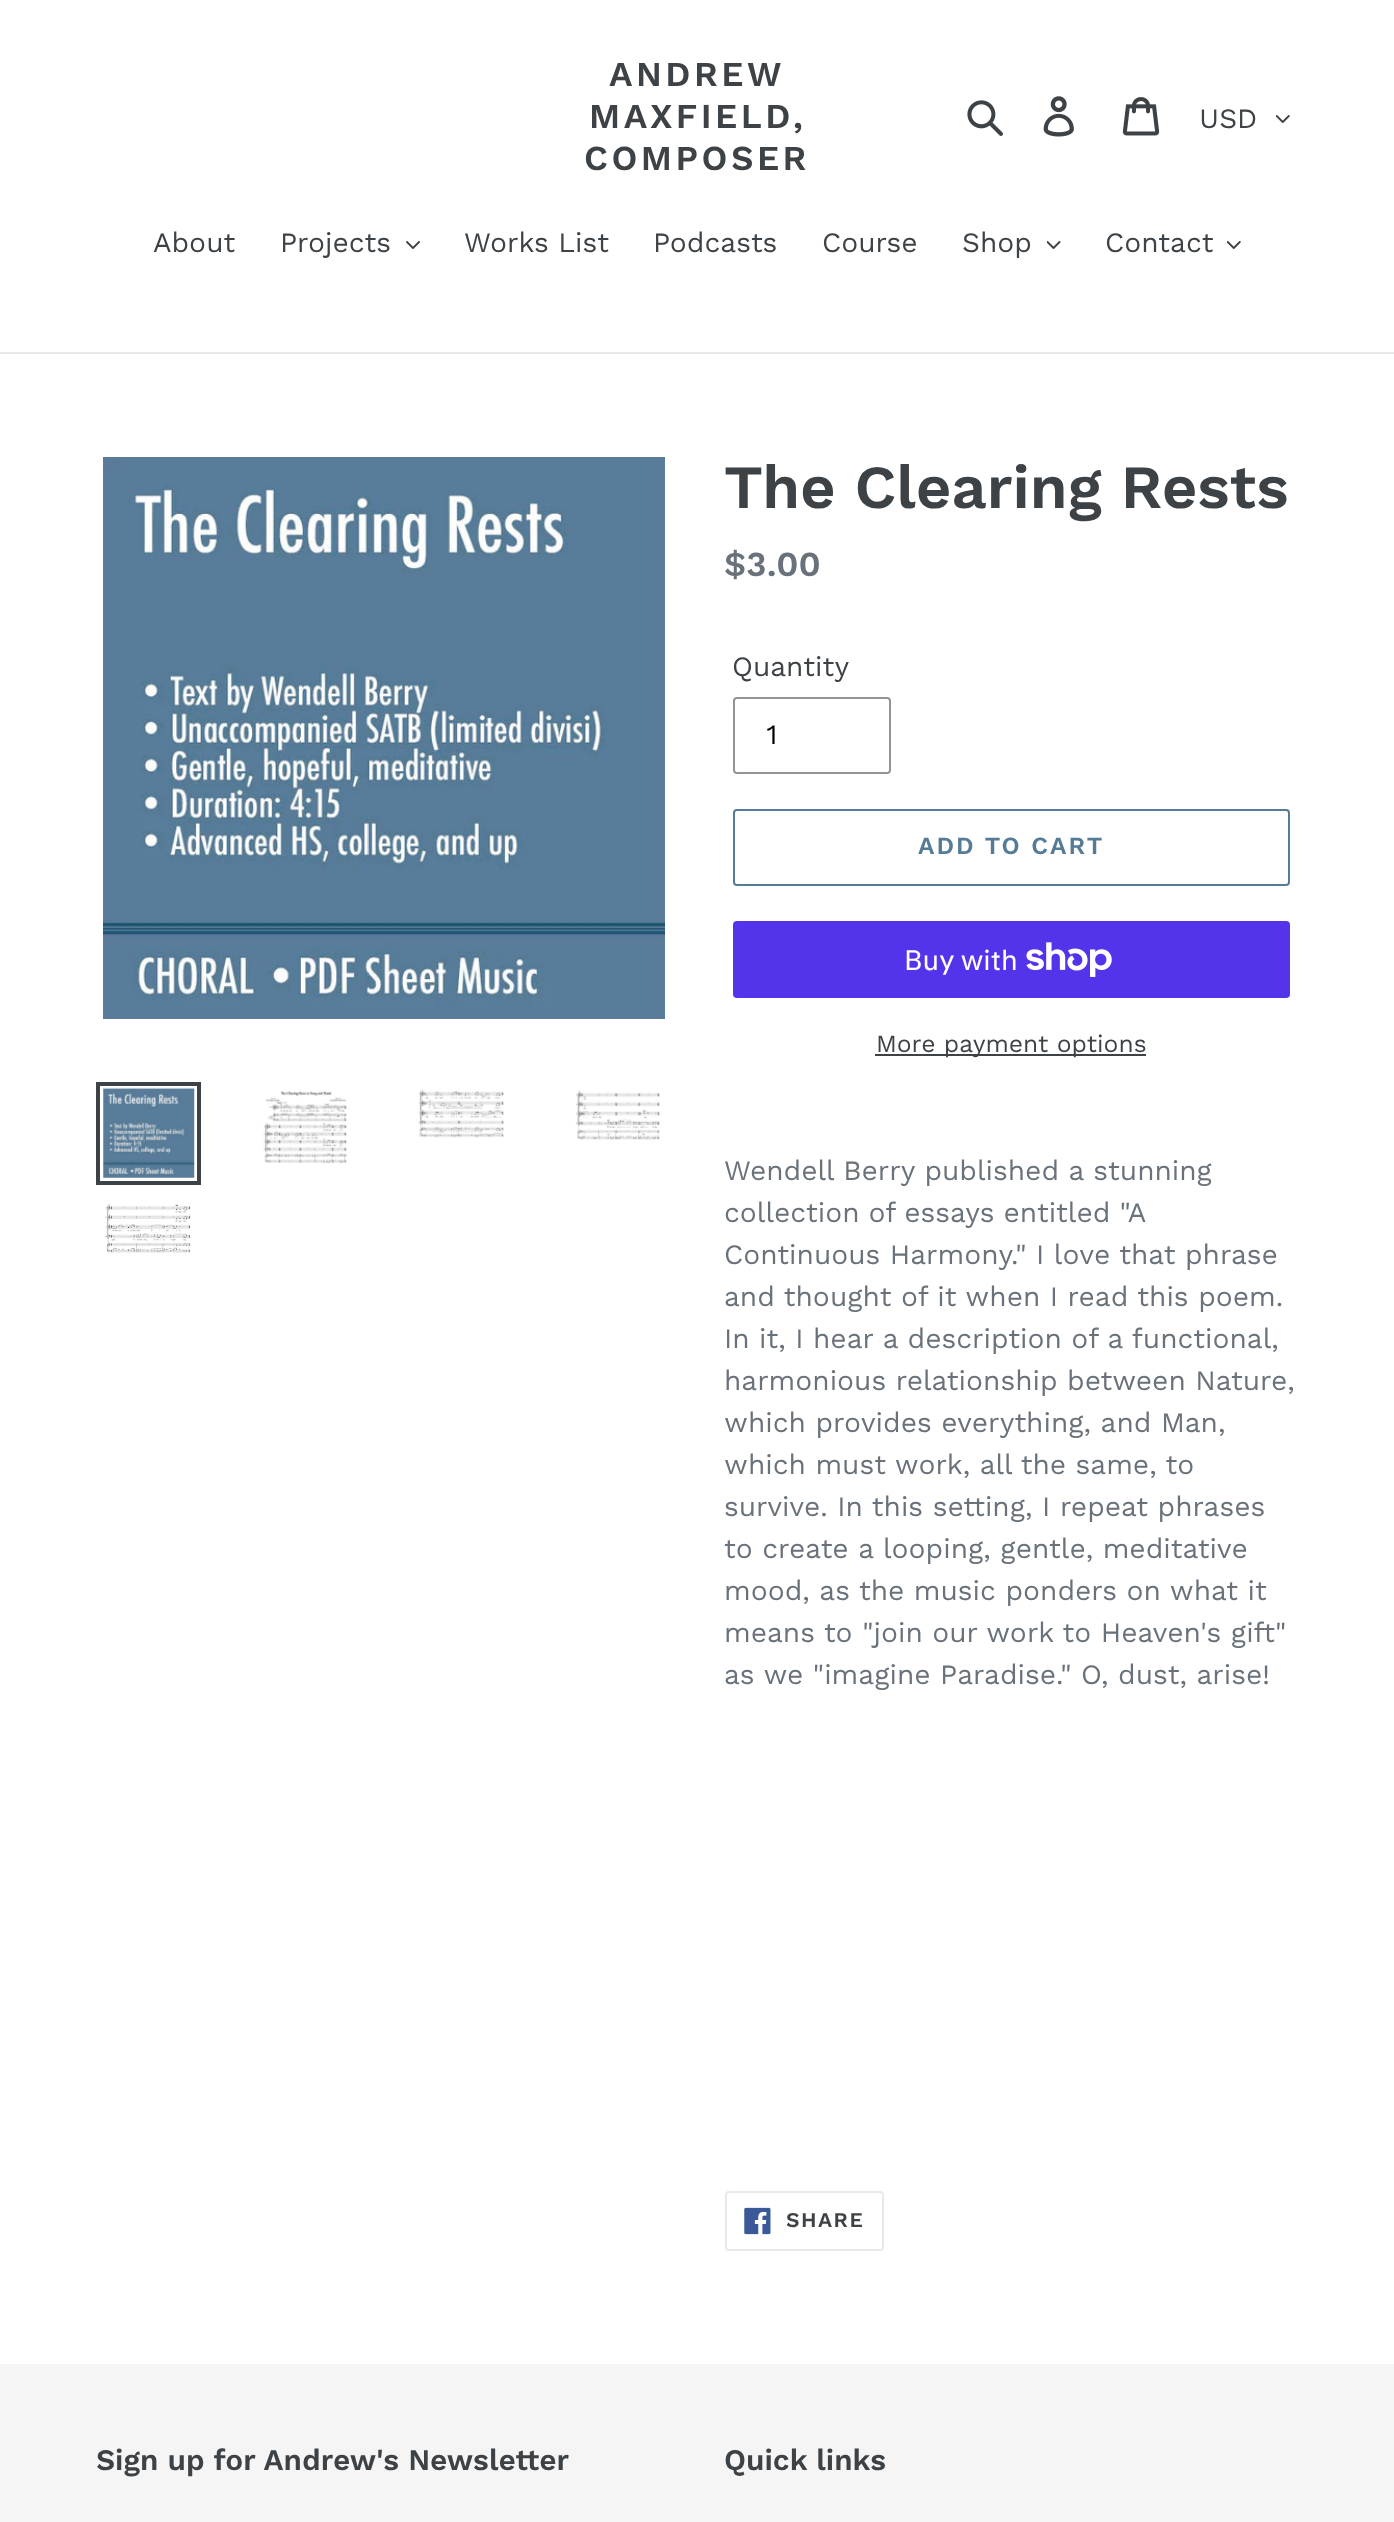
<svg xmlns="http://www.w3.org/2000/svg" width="1394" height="2522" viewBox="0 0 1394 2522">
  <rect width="100%" height="100%" fill="rgb(255,255,255)"/>
  <g font-family="Work Sans" font-size="35" font-weight="600" letter-spacing="3.5" fill="rgb(61,66,70)">
    <text x="609" y="86">ANDREW</text>
    <text x="589" y="128">MAXFIELD,</text>
    <text x="584" y="170">COMPOSER</text>
  </g>
  <image x="967" y="100" width="36" height="36" href="pic1.png"/>
  <image x="1043" y="96" width="31" height="41" href="pic2.png"/>
  <image x="1122" y="97" width="38" height="39" href="pic3.png"/>
  <text x="1199" y="128" font-family="Work Sans" font-size="28" fill="rgb(61,66,70)">USD</text>
  <image x="1276" y="115" width="14" height="8" href="pic4.png"/>
  <rect x="0" y="352" width="1394" height="2" fill="rgb(232,233,235)"/>
  <g font-family="Work Sans" font-size="28" fill="rgb(61,66,70)">
    <text x="153" y="252">About</text>
    <text x="280" y="252">Projects</text>
  </g>
  <image x="406" y="241" width="14" height="8" href="pic5.png"/>
  <g font-family="Work Sans" font-size="28" fill="rgb(61,66,70)">
    <text x="464" y="252">Works List</text>
    <text x="653" y="252">Podcasts</text>
    <text x="822" y="252">Course</text>
    <text x="962" y="252">Shop</text>
  </g>
  <image x="1047" y="241" width="14" height="8" href="pic6.png"/>
  <text x="1105" y="252" font-family="Work Sans" font-size="28" fill="rgb(61,66,70)">Contact</text>
  <image x="1227" y="241" width="14" height="8" href="pic4.png"/>
  <image x="103" y="457" width="562" height="562" href="pic7.png"/>
  <rect x="98" y="1084" width="101" height="99" fill="none" stroke="rgb(61,66,70)" stroke-width="4"/>
  <image x="103" y="1087" width="92" height="91" href="pic8.png"/>
  <image x="263" y="1091" width="84" height="73" href="pic9.png"/>
  <image x="418" y="1089" width="86" height="49" href="pic10.png"/>
  <image x="575" y="1090" width="85" height="50" href="pic11.png"/>
  <image x="105" y="1204" width="86" height="49" href="pic12.png"/>
  <text x="724" y="508" font-family="Work Sans" font-size="61.25" font-weight="600" fill="rgb(61,66,70)">The Clearing Rests</text>
  <text x="724" y="576" font-family="Work Sans" font-size="35" font-weight="600" fill="rgb(105,114,123)">$3.00</text>
  <text x="732" y="676" font-family="Work Sans" font-size="28" fill="rgb(61,66,70)">Quantity</text>
  <rect x="734" y="698" width="156" height="75" rx="3" fill="none" stroke="rgb(148,148,148)" stroke-width="2"/>
  <text x="766" y="744" font-family="Work Sans" font-size="28" fill="rgb(0,0,0)">1</text>
  <rect x="734" y="810" width="555" height="75" rx="3" fill="none" stroke="rgb(85,123,151)" stroke-width="2"/>
  <text x="918" y="854" font-family="Work Sans" font-size="24.5" font-weight="600" letter-spacing="2" fill="rgb(85,123,151)">ADD TO CART</text>
  <rect x="733" y="921" width="557" height="77" rx="4" fill="rgb(84,51,235)"/>
  <text x="904" y="970" font-family="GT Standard" font-size="28" fill="rgb(255,255,255)">Buy with</text>
  <image x="1026" y="942" width="86" height="35" href="pic13.png"/>
  <rect x="875" y="1054" width="271" height="2" fill="rgb(61,66,70)"/>
  <text x="876" y="1052" font-family="Work Sans" font-size="24.5" fill="rgb(61,66,70)">More payment options</text>
  <g font-family="Work Sans" font-size="28" fill="rgb(105,114,123)">
    <text>
      <tspan x="724" y="1180">Wendell Berry published a stunning</tspan>
      <tspan x="724" y="1222" word-spacing="-0.5">collection of essays entitled "A</tspan>
      <tspan x="724" y="1264">Continuous Harmony." I love that phrase</tspan>
      <tspan x="724" y="1306">and thought of it when I read this poem.</tspan>
      <tspan x="724" y="1348">In it, I hear a description of a functional,</tspan>
      <tspan x="724" y="1390">harmonious relationship between Nature,</tspan>
      <tspan x="724" y="1432">which provides everything, and Man,</tspan>
      <tspan x="724" y="1474">which must work, all the same, to</tspan>
      <tspan x="724" y="1516">survive. In this setting, I repeat phrases</tspan>
      <tspan x="724" y="1558">to create a looping, gentle, meditative</tspan>
      <tspan x="724" y="1600">mood, as the music ponders on what it</tspan>
      <tspan x="724" y="1642">means to "join our work to Heaven's gift"</tspan>
      <tspan x="724" y="1684">as we "imagine Paradise." O, dust, arise!</tspan>
    </text>
  </g>
  <rect x="726" y="2192" width="157" height="58" rx="3" fill="none" stroke="rgb(232,233,235)" stroke-width="2"/>
  <image x="744" y="2207" width="27" height="28" href="pic14.png"/>
  <text x="786" y="2227" font-family="Work Sans" font-size="21" font-weight="600" letter-spacing="1.5" fill="rgb(61,66,70)">SHARE</text>
  <rect x="0" y="2364" width="1394" height="158" fill="rgb(245,245,245)"/>
  <g font-family="Work Sans" font-size="29.75" font-weight="600" fill="rgb(61,66,70)">
    <text x="96" y="2470">Sign up for Andrew's Newsletter</text>
    <text x="724" y="2470">Quick links</text>
  </g>
</svg>
